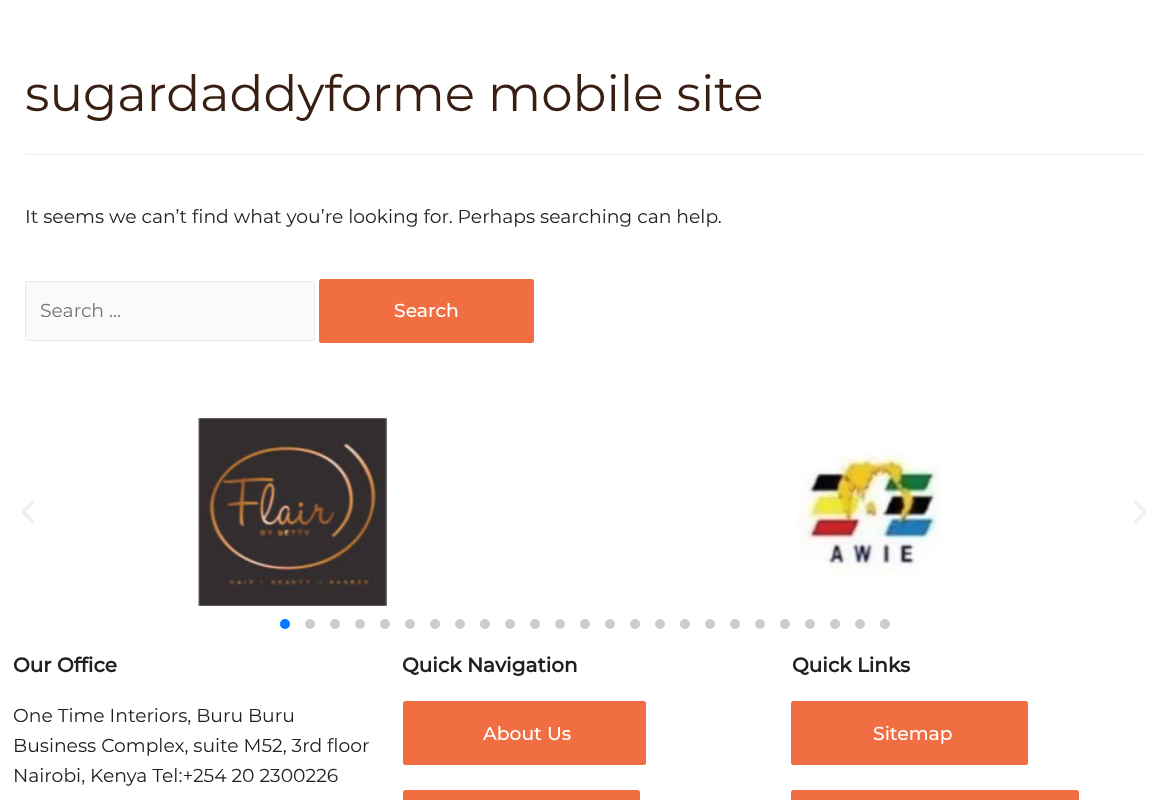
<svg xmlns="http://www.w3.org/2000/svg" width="1168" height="800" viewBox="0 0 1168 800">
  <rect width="100%" height="100%" fill="rgb(255,255,255)"/>
  <rect x="25" y="154" width="1119" height="1" fill="rgb(238,238,238)"/>
  <text x="25" y="111" font-family="Montserrat" font-size="50" fill="rgb(56,30,19)">sugardaddyforme mobile site</text>
  <text x="25" y="223" font-family="Montserrat" font-size="18.75" fill="rgb(33,33,33)">It seems we can’t find what you’re looking for. Perhaps searching can help.</text>
  <rect x="25.5" y="281.5" width="289" height="59" rx="2" fill="rgb(250,250,250)" stroke="rgb(234,234,234)"/>
  <text x="40" y="317" font-family="Montserrat" font-size="18.75" fill="rgb(117,117,117)">Search …</text>
  <rect x="319" y="279" width="215" height="64" rx="2.5" fill="rgb(241,110,67)"/>
  <text x="394" y="317" font-family="Montserrat" font-size="18.75" font-weight="500" fill="rgb(255,255,255)">Search</text>
  <image x="21" y="500" width="14" height="24" href="pic1.png"/>
  <image x="198" y="418" width="189" height="188" href="pic2.png"/>
  <image x="796" y="451" width="145" height="127" href="pic3.png"/>
  <image x="1134" y="500" width="13" height="24" href="pic4.png"/>
  <circle cx="285" cy="624" r="5" fill="rgb(0,122,255)"/>
  <circle cx="310" cy="624" r="5" fill="rgb(204,204,204)"/>
  <circle cx="335" cy="624" r="5" fill="rgb(204,204,204)"/>
  <circle cx="360" cy="624" r="5" fill="rgb(204,204,204)"/>
  <circle cx="385" cy="624" r="5" fill="rgb(204,204,204)"/>
  <circle cx="410" cy="624" r="5" fill="rgb(204,204,204)"/>
  <circle cx="435" cy="624" r="5" fill="rgb(204,204,204)"/>
  <circle cx="460" cy="624" r="5" fill="rgb(204,204,204)"/>
  <circle cx="485" cy="624" r="5" fill="rgb(204,204,204)"/>
  <circle cx="510" cy="624" r="5" fill="rgb(204,204,204)"/>
  <circle cx="535" cy="624" r="5" fill="rgb(204,204,204)"/>
  <circle cx="560" cy="624" r="5" fill="rgb(204,204,204)"/>
  <circle cx="585" cy="624" r="5" fill="rgb(204,204,204)"/>
  <circle cx="610" cy="624" r="5" fill="rgb(204,204,204)"/>
  <circle cx="635" cy="624" r="5" fill="rgb(204,204,204)"/>
  <circle cx="660" cy="624" r="5" fill="rgb(204,204,204)"/>
  <circle cx="685" cy="624" r="5" fill="rgb(204,204,204)"/>
  <circle cx="710" cy="624" r="5" fill="rgb(204,204,204)"/>
  <circle cx="735" cy="624" r="5" fill="rgb(204,204,204)"/>
  <circle cx="760" cy="624" r="5" fill="rgb(204,204,204)"/>
  <circle cx="785" cy="624" r="5" fill="rgb(204,204,204)"/>
  <circle cx="810" cy="624" r="5" fill="rgb(204,204,204)"/>
  <circle cx="835" cy="624" r="5" fill="rgb(204,204,204)"/>
  <circle cx="860" cy="624" r="5" fill="rgb(204,204,204)"/>
  <circle cx="885" cy="624" r="5" fill="rgb(204,204,204)"/>
  <text x="13" y="672" font-family="Montserrat" font-size="20" font-weight="bold" fill="rgb(33,33,33)">Our Office</text>
  <g font-family="Montserrat" font-size="18.75" fill="rgb(33,33,33)">
    <text>
      <tspan x="13" y="722">One Time Interiors, Buru Buru</tspan>
      <tspan x="13" y="752">Business Complex, suite M52, 3rd floor</tspan>
      <tspan x="13" y="782">Nairobi, Kenya Tel:+254 20 2300226</tspan>
    </text>
  </g>
  <text x="402" y="672" font-family="Montserrat" font-size="20" font-weight="bold" fill="rgb(33,33,33)">Quick Navigation</text>
  <rect x="403" y="701" width="243" height="64" rx="2.5" fill="rgb(241,110,67)"/>
  <text x="483" y="740" font-family="Montserrat" font-size="18.75" font-weight="500" fill="rgb(255,255,255)">About Us</text>
  <rect x="403" y="790" width="237" height="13" rx="2.5" fill="rgb(241,110,67)"/>
  <text x="792" y="672" font-family="Montserrat" font-size="20" font-weight="bold" fill="rgb(33,33,33)">Quick Links</text>
  <rect x="791" y="701" width="237" height="64" rx="2.5" fill="rgb(241,110,67)"/>
  <text x="873" y="740" font-family="Montserrat" font-size="18.75" font-weight="500" fill="rgb(255,255,255)">Sitemap</text>
  <rect x="791" y="790" width="288" height="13" rx="2.5" fill="rgb(241,110,67)"/>
</svg>
